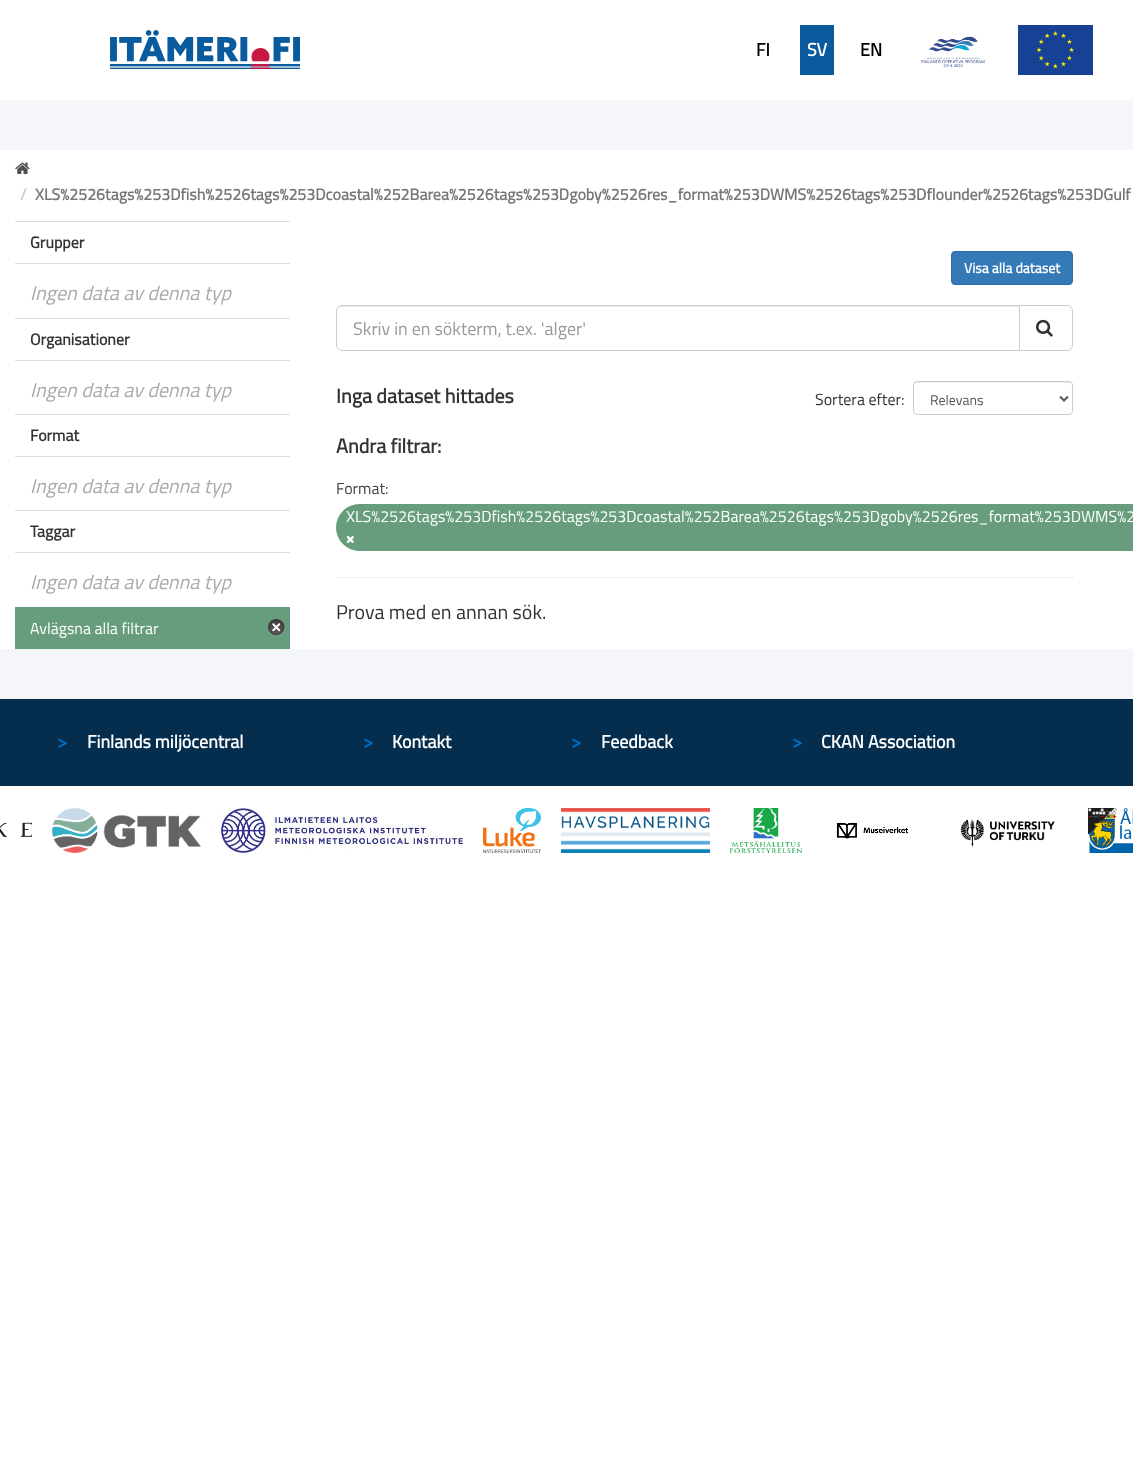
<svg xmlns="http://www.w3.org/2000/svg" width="1133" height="1480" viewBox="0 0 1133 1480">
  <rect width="100%" height="100%" fill="rgb(255,255,255)"/>
  <image x="110" y="30" width="190" height="39" href="pic1.png"/>
  <text x="756" y="56" font-family="Titillium Web" font-size="18" font-weight="bold" fill="rgb(0,0,0)">FI</text>
  <rect x="800" y="25" width="34" height="50" fill="rgb(9,91,157)"/>
  <text x="807" y="56" font-family="Titillium Web" font-size="18" font-weight="bold" fill="rgb(255,255,255)">SV</text>
  <text x="860" y="56" font-family="Titillium Web" font-size="18" font-weight="bold" fill="rgb(0,0,0)">EN</text>
  <image x="921" y="36" width="64" height="32" href="pic2.png"/>
  <image x="1018" y="25" width="75" height="50" href="pic3.png"/>
  <rect x="0" y="100" width="1133" height="599" fill="rgb(245,246,250)"/>
  <rect x="0" y="150" width="1133" height="499" fill="rgb(255,255,255)"/>
  <image x="15" y="162" width="15" height="12" href="pic4.png"/>
  <text x="20" y="200" font-family="Titillium Web" font-size="16" font-weight="bold" fill="rgb(204,204,204)">/</text>
  <text x="35" y="200" font-family="Titillium Web" font-size="16" font-weight="bold" fill="rgb(119,119,119)">XLS%2526tags%253Dfish%2526tags%253Dcoastal%252Barea%2526tags%253Dgoby%2526res_format%253DWMS%2526tags%253Dflounder%2526tags%253DGulf</text>
  <rect x="15" y="221" width="275" height="1" fill="rgb(221,221,221)"/>
  <rect x="15" y="263" width="275" height="1" fill="rgb(221,221,221)"/>
  <text x="30" y="248" font-family="Titillium Web" font-size="16" font-weight="bold" fill="rgb(51,51,51)">Grupper</text>
  <text x="30" y="300" font-family="Titillium Web" font-size="20" font-style="italic" fill="rgb(170,170,170)">Ingen data av denna typ</text>
  <rect x="15" y="318" width="275" height="1" fill="rgb(221,221,221)"/>
  <rect x="15" y="360" width="275" height="1" fill="rgb(221,221,221)"/>
  <text x="30" y="345" font-family="Titillium Web" font-size="16" font-weight="bold" fill="rgb(51,51,51)">Organisationer</text>
  <text x="30" y="397" font-family="Titillium Web" font-size="20" font-style="italic" fill="rgb(170,170,170)">Ingen data av denna typ</text>
  <rect x="15" y="414" width="275" height="1" fill="rgb(221,221,221)"/>
  <rect x="15" y="456" width="275" height="1" fill="rgb(221,221,221)"/>
  <text x="30" y="441" font-family="Titillium Web" font-size="16" font-weight="bold" fill="rgb(51,51,51)">Format</text>
  <text x="30" y="493" font-family="Titillium Web" font-size="20" font-style="italic" fill="rgb(170,170,170)">Ingen data av denna typ</text>
  <rect x="15" y="510" width="275" height="1" fill="rgb(221,221,221)"/>
  <rect x="15" y="552" width="275" height="1" fill="rgb(221,221,221)"/>
  <text x="30" y="537" font-family="Titillium Web" font-size="16" font-weight="bold" fill="rgb(51,51,51)">Taggar</text>
  <text x="30" y="589" font-family="Titillium Web" font-size="20" font-style="italic" fill="rgb(170,170,170)">Ingen data av denna typ</text>
  <rect x="15" y="607" width="275" height="42" fill="rgb(103,157,125)"/>
  <text x="30" y="634" font-family="Titillium Web" font-size="16" fill="rgb(255,255,255)">Avlägsna alla filtrar</text>
  <image x="268" y="619" width="17" height="17" href="pic5.png"/>
  <rect x="951.5" y="251.5" width="121" height="33" rx="3.5" fill="rgb(51,122,183)" stroke="rgb(46,109,164)"/>
  <text x="964" y="273" font-family="Titillium Web" font-size="14" font-weight="bold" fill="rgb(255,255,255)">Visa alla dataset</text>
  <path d="M336 577.5H1073" fill="none" stroke="rgb(221,221,221)" stroke-dasharray="1 1"/>
  <path d="M342 307H1019V306H342C339 306 337 309 337 312C337 309 339 307 342 307Z" fill="rgb(236,236,236)"/>
  <path d="M342 305.5H1019.5V350.5H342C339 350.5 336.5 348 336.5 345V311C336.5 308 339 305.5 342 305.5Z" fill="none" stroke="rgb(204,204,204)"/>
  <text x="353" y="335" font-family="Titillium Web" font-size="18" fill="rgb(153,153,153)">Skriv in en sökterm, t.ex. 'alger'</text>
  <path d="M1019.5 305.5H1067C1070 305.5 1072.5 308 1072.5 311V345C1072.5 348 1070 350.5 1067 350.5H1019.5Z" fill="rgb(255,255,255)" stroke="rgb(204,204,204)"/>
  <image x="1036" y="319" width="17" height="18" href="pic6.png"/>
  <text x="336" y="403" font-family="Titillium Web" font-size="20" font-weight="bold" fill="rgb(51,51,51)">Inga dataset hittades</text>
  <text x="815" y="405" font-family="Titillium Web" font-size="16" fill="rgb(51,51,51)">Sortera efter:</text>
  <path d="M917 383H1069C1071 383 1072 384 1072 386C1072 384 1071 382 1069 382H916C914 382 914 384 914 386C914 384 915 383 917 383Z" fill="rgb(236,236,236)"/>
  <rect x="913.5" y="381.5" width="159" height="33" rx="3.5" fill="none" stroke="rgb(204,204,204)"/>
  <path d="M1060 396.5L1064 400.5L1068 396.5" fill="none" stroke="rgb(85,85,85)" stroke-width="2"/>
  <text x="930" y="405" font-family="Titillium Web" font-size="14" fill="rgb(85,85,85)">Relevans</text>
  <text x="336" y="453" font-family="Titillium Web" font-size="20" font-weight="bold" fill="rgb(51,51,51)">Andra filtrar:</text>
  <text x="336" y="494" font-family="Titillium Web" font-size="16" fill="rgb(68,68,68)">Format:</text>
  <rect x="336" y="504" width="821" height="47" rx="23.5" fill="rgb(103,157,125)"/>
  <text x="346" y="522" font-family="Titillium Web" font-size="16" fill="rgb(255,255,255)">XLS%2526tags%253Dfish%2526tags%253Dcoastal%252Barea%2526tags%253Dgoby%2526res_format%253DWMS%2</text>
  <image x="346" y="535" width="8" height="9" href="pic7.png"/>
  <text x="336" y="619" font-family="Titillium Web" font-size="20" fill="rgb(51,51,51)">Prova med en annan sök.</text>
  <rect x="0" y="699" width="1133" height="87" fill="rgb(5,45,77)"/>
  <text x="57" y="748" font-family="Titillium Web" font-size="18" font-weight="bold" fill="rgb(0,116,208)">&gt;</text>
  <text x="87" y="748" font-family="Titillium Web" font-size="18" font-weight="bold" fill="rgb(255,255,255)">Finlands miljöcentral</text>
  <text x="363" y="748" font-family="Titillium Web" font-size="18" font-weight="bold" fill="rgb(0,116,208)">&gt;</text>
  <text x="392" y="748" font-family="Titillium Web" font-size="18" font-weight="bold" fill="rgb(255,255,255)">Kontakt</text>
  <text x="571" y="748" font-family="Titillium Web" font-size="18" font-weight="bold" fill="rgb(0,116,208)">&gt;</text>
  <text x="601" y="748" font-family="Titillium Web" font-size="18" font-weight="bold" fill="rgb(255,255,255)">Feedback</text>
  <text x="792" y="748" font-family="Titillium Web" font-size="18" font-weight="bold" fill="rgb(0,116,208)">&gt;</text>
  <text x="821" y="748" font-family="Titillium Web" font-size="18" font-weight="bold" fill="rgb(255,255,255)">CKAN Association</text>
  <image x="0" y="822" width="32" height="15" href="pic8.png"/>
  <image x="52" y="808" width="149" height="45" href="pic9.png"/>
  <image x="221" y="808" width="242" height="45" href="pic10.png"/>
  <image x="483" y="808" width="58" height="45" href="pic11.png"/>
  <image x="561" y="808" width="149" height="45" href="pic12.png"/>
  <image x="730" y="808" width="72" height="45" href="pic13.png"/>
  <image x="836" y="822" width="73" height="17" href="pic14.png"/>
  <image x="960" y="819" width="95" height="28" href="pic15.png"/>
  <image x="1088" y="808" width="45" height="45" href="pic16.png"/>
</svg>
